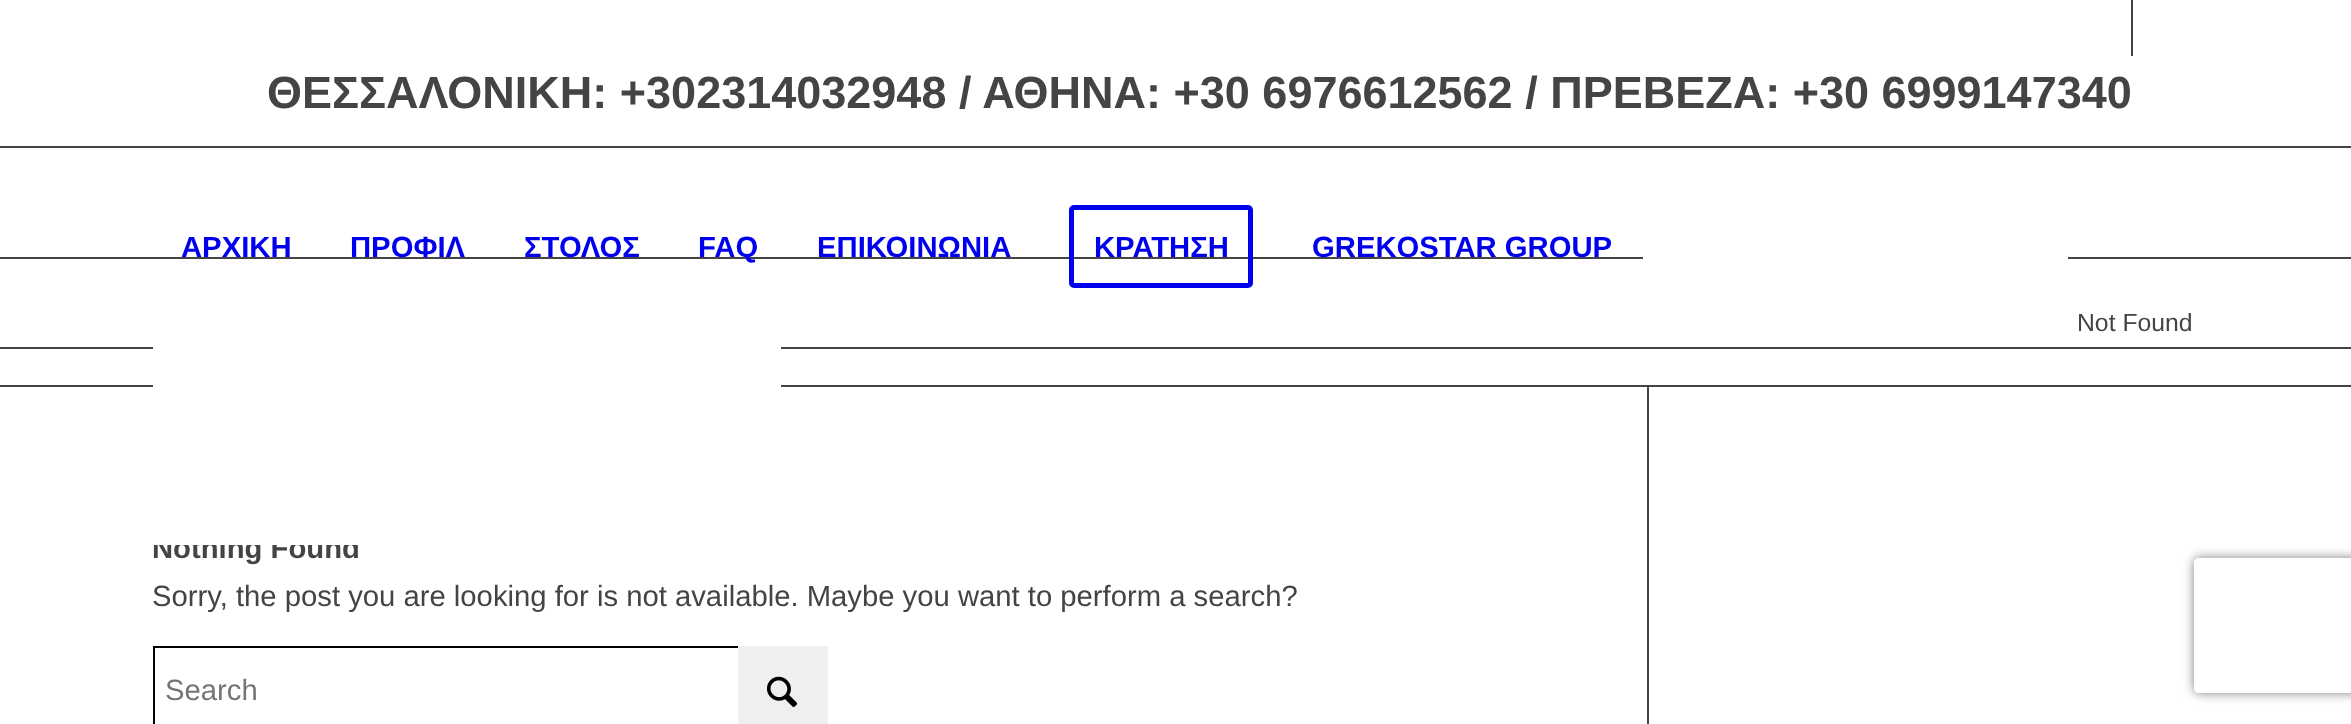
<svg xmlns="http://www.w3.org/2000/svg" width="2351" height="724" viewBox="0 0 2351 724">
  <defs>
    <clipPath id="clip1"><path d="M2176 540H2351V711H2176ZM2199 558H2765C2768 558 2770 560 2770 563V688C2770 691 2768 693 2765 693H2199C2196 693 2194 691 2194 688V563C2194 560 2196 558 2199 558Z" clip-rule="evenodd"/></clipPath>
  </defs>
  <rect width="100%" height="100%" fill="rgb(255,255,255)"/>
  <rect x="2131" y="0" width="2" height="56" fill="rgb(68,68,68)"/>
  <text x="267" y="108" font-family="Liberation Sans" font-size="45" font-weight="bold" fill="rgb(68,68,68)">ΘΕΣΣΑΛΟΝΙΚΗ: +302314032948 / ΑΘΗΝΑ: +30 6976612562 / ΠΡΕΒΕΖΑ: +30 6999147340</text>
  <rect x="0" y="146" width="2351" height="2" fill="rgb(68,68,68)"/>
  <rect x="0" y="347" width="2351" height="2" fill="rgb(68,68,68)"/>
  <text x="181" y="257" font-family="Liberation Sans" font-size="29.25" font-weight="bold" fill="rgb(0,0,238)">ΑΡΧΙΚΗ</text>
  <rect x="0" y="257" width="2351" height="2" fill="rgb(68,68,68)"/>
  <g font-family="Liberation Sans" font-size="29.25" font-weight="bold" fill="rgb(0,0,238)">
    <text x="350" y="257">ΠΡΟΦΙΛ</text>
    <text x="524" y="257">ΣΤΟΛΟΣ</text>
    <text x="698" y="257">FAQ</text>
    <text x="817" y="257">ΕΠΙΚΟΙΝΩΝΙΑ</text>
  </g>
  <rect x="1071.5" y="207.5" width="179" height="78" rx="2.5" fill="none" stroke="rgb(0,0,238)" stroke-width="5"/>
  <g font-family="Liberation Sans" font-size="29.25" font-weight="bold" fill="rgb(0,0,238)">
    <text x="1094" y="257">ΚΡΑΤΗΣΗ</text>
    <text x="1312" y="257">GREKOSTAR GROUP</text>
  </g>
  <rect x="1643" y="257" width="425" height="2" fill="rgb(255,255,255)"/>
  <rect x="0" y="385" width="2351" height="2" fill="rgb(68,68,68)"/>
  <text x="152" y="558" font-family="Liberation Sans" font-size="29.25" font-weight="bold" fill="rgb(68,68,68)">Nothing Found</text>
  <rect x="153" y="347" width="236" height="198" fill="rgb(255,255,255)"/>
  <rect x="389" y="347" width="392" height="40" fill="rgb(255,255,255)"/>
  <text x="2077" y="331" font-family="Liberation Sans" font-size="24.75" fill="rgb(68,68,68)">Not Found</text>
  <rect x="1647" y="387" width="2" height="337" fill="rgb(68,68,68)"/>
  <text x="152" y="606" font-family="Liberation Sans" font-size="29.25" fill="rgb(68,68,68)">Sorry, the post you are looking for is not available. Maybe you want to perform a search?</text>
  <rect x="154" y="647" width="673" height="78" fill="none" stroke="rgb(0,0,0)" stroke-width="2"/>
  <rect x="738" y="646" width="90" height="78" fill="rgb(239,239,239)"/>
  <text x="165" y="700" font-family="Liberation Sans" font-size="29.25" fill="rgb(117,117,117)">Search</text>
  <image x="766" y="676" width="32" height="31" href="pic1.png"/>
  <g clip-path="url(#clip1)">
    <rect x="2194" y="558" width="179" height="135" rx="5" fill="rgb(128,128,128)" filter="blur(5.5px)"/>
  </g>
</svg>
